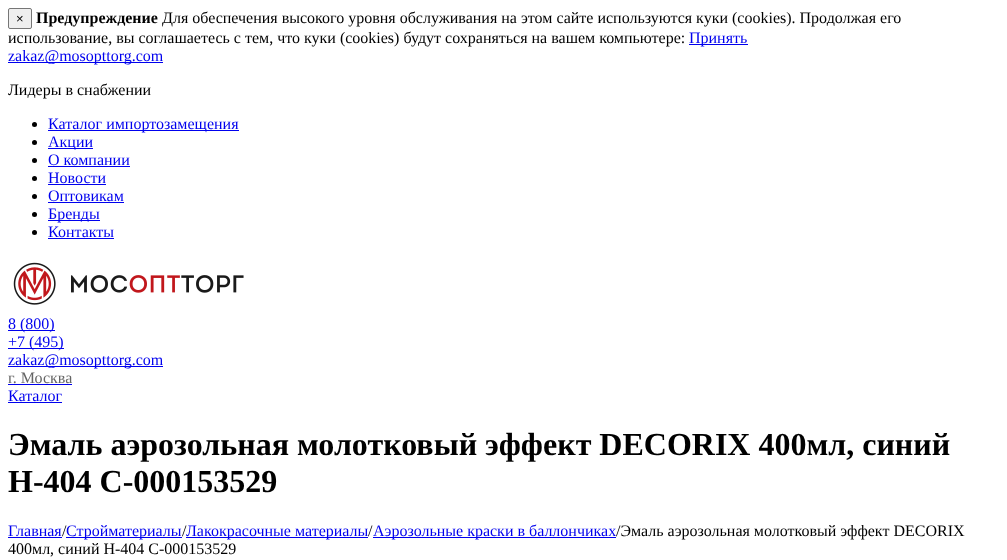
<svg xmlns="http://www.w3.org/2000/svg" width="1007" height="560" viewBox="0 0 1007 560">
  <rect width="100%" height="100%" fill="rgb(255,255,255)"/>
  <rect x="8.5" y="8.5" width="23" height="20" rx="1.5" fill="rgb(239,239,239)" stroke="rgb(118,118,118)"/>
  <text x="16" y="23" font-family="Liberation Sans" font-size="13" fill="rgb(0,0,0)">×</text>
  <text x="36" y="23" font-family="Liberation Serif" font-size="16" font-weight="bold" fill="rgb(0,0,0)">Предупреждение</text>
  <g font-family="Liberation Serif" font-size="16" fill="rgb(0,0,0)">
    <text x="162" y="23">Для обеспечения высокого уровня обслуживания на этом сайте используются куки (cookies). Продолжая его</text>
    <text x="8" y="43">использование, вы соглашаетесь с тем, что куки (cookies) будут сохраняться на вашем компьютере:</text>
  </g>
  <rect x="689" y="44" width="59" height="1" fill="rgb(0,0,238)"/>
  <text x="689" y="43" font-family="Liberation Serif" font-size="16" fill="rgb(0,0,238)">Принять</text>
  <rect x="8" y="62" width="155" height="1" fill="rgb(0,0,238)"/>
  <text x="8" y="61" font-family="Liberation Serif" font-size="16" fill="rgb(0,0,238)">zakaz@mosopttorg.com</text>
  <text x="8" y="95" font-family="Liberation Serif" font-size="16" fill="rgb(0,0,0)">Лидеры в снабжении</text>
  <circle cx="34.5" cy="124.5" r="2.5" fill="rgb(0,0,0)"/>
  <rect x="48" y="130" width="191" height="1" fill="rgb(0,0,238)"/>
  <text x="48" y="129" font-family="Liberation Serif" font-size="16" fill="rgb(0,0,238)">Каталог импортозамещения</text>
  <circle cx="34.5" cy="142.5" r="2.5" fill="rgb(0,0,0)"/>
  <rect x="48" y="148" width="45" height="1" fill="rgb(0,0,238)"/>
  <text x="48" y="147" font-family="Liberation Serif" font-size="16" fill="rgb(0,0,238)">Акции</text>
  <circle cx="34.5" cy="160.5" r="2.5" fill="rgb(0,0,0)"/>
  <text x="48" y="165" font-family="Liberation Serif" font-size="16" fill="rgb(0,0,238)">О компании</text>
  <rect x="48" y="166" width="82" height="1" fill="rgb(0,0,238)"/>
  <circle cx="34.5" cy="178.5" r="2.5" fill="rgb(0,0,0)"/>
  <text x="48" y="183" font-family="Liberation Serif" font-size="16" fill="rgb(0,0,238)">Новости</text>
  <rect x="48" y="184" width="58" height="1" fill="rgb(0,0,238)"/>
  <circle cx="34.5" cy="196.5" r="2.5" fill="rgb(0,0,0)"/>
  <text x="48" y="201" font-family="Liberation Serif" font-size="16" fill="rgb(0,0,238)">Оптовикам</text>
  <rect x="48" y="202" width="76" height="1" fill="rgb(0,0,238)"/>
  <circle cx="34.5" cy="214.5" r="2.5" fill="rgb(0,0,0)"/>
  <rect x="48" y="220" width="52" height="1" fill="rgb(0,0,238)"/>
  <text x="48" y="219" font-family="Liberation Serif" font-size="16" fill="rgb(0,0,238)">Бренды</text>
  <circle cx="34.5" cy="232.5" r="2.5" fill="rgb(0,0,0)"/>
  <text x="48" y="237" font-family="Liberation Serif" font-size="16" fill="rgb(0,0,238)">Контакты</text>
  <rect x="48" y="238" width="66" height="1" fill="rgb(0,0,238)"/>
  <image x="13" y="262" width="231" height="43" href="pic1.png"/>
  <rect x="8" y="330" width="47" height="1" fill="rgb(0,0,238)"/>
  <text x="8" y="329" font-family="Liberation Serif" font-size="16" fill="rgb(0,0,238)">8 (800)</text>
  <rect x="8" y="348" width="56" height="1" fill="rgb(0,0,238)"/>
  <text x="8" y="347" font-family="Liberation Serif" font-size="16" fill="rgb(0,0,238)">+7 (495)</text>
  <rect x="8" y="366" width="155" height="1" fill="rgb(0,0,238)"/>
  <text x="8" y="365" font-family="Liberation Serif" font-size="16" fill="rgb(0,0,238)">zakaz@mosopttorg.com</text>
  <text x="8" y="383" font-family="Liberation Serif" font-size="16" fill="rgb(100,100,100)">г. Москва</text>
  <rect x="8" y="384" width="64" height="1" fill="rgb(0,0,238)"/>
  <text x="8" y="401" font-family="Liberation Serif" font-size="16" fill="rgb(0,0,238)">Каталог</text>
  <rect x="8" y="402" width="54" height="1" fill="rgb(0,0,238)"/>
  <g font-family="Liberation Serif" font-size="32" font-weight="bold" fill="rgb(0,0,0)">
    <text>
      <tspan x="8" y="455">Эмаль аэрозольная молотковый эффект DECORIX 400мл, синий</tspan>
      <tspan x="8" y="492">Н-404 С-000153529</tspan>
    </text>
  </g>
  <text x="8" y="536" font-family="Liberation Serif" font-size="16" fill="rgb(0,0,238)">Главная</text>
  <rect x="8" y="537" width="54" height="1" fill="rgb(0,0,238)"/>
  <text x="62" y="536" font-family="Liberation Serif" font-size="16" fill="rgb(0,0,0)">/</text>
  <rect x="66" y="537" width="116" height="1" fill="rgb(0,0,238)"/>
  <text x="66" y="536" font-family="Liberation Serif" font-size="16" fill="rgb(0,0,238)">Стройматериалы</text>
  <text x="182" y="536" font-family="Liberation Serif" font-size="16" fill="rgb(0,0,0)">/</text>
  <rect x="186" y="537" width="182" height="1" fill="rgb(0,0,238)"/>
  <text x="186" y="536" font-family="Liberation Serif" font-size="16" fill="rgb(0,0,238)">Лакокрасочные материалы</text>
  <text x="368" y="536" font-family="Liberation Serif" font-size="16" fill="rgb(0,0,0)">/</text>
  <rect x="373" y="537" width="243" height="1" fill="rgb(0,0,238)"/>
  <text x="373" y="536" font-family="Liberation Serif" font-size="16" fill="rgb(0,0,238)">Аэрозольные краски в баллончиках</text>
  <g font-family="Liberation Serif" font-size="16" fill="rgb(0,0,0)">
    <text x="616" y="536">/Эмаль аэрозольная молотковый эффект DECORIX</text>
    <text x="8" y="554">400мл, синий Н-404 С-000153529</text>
  </g>
</svg>
